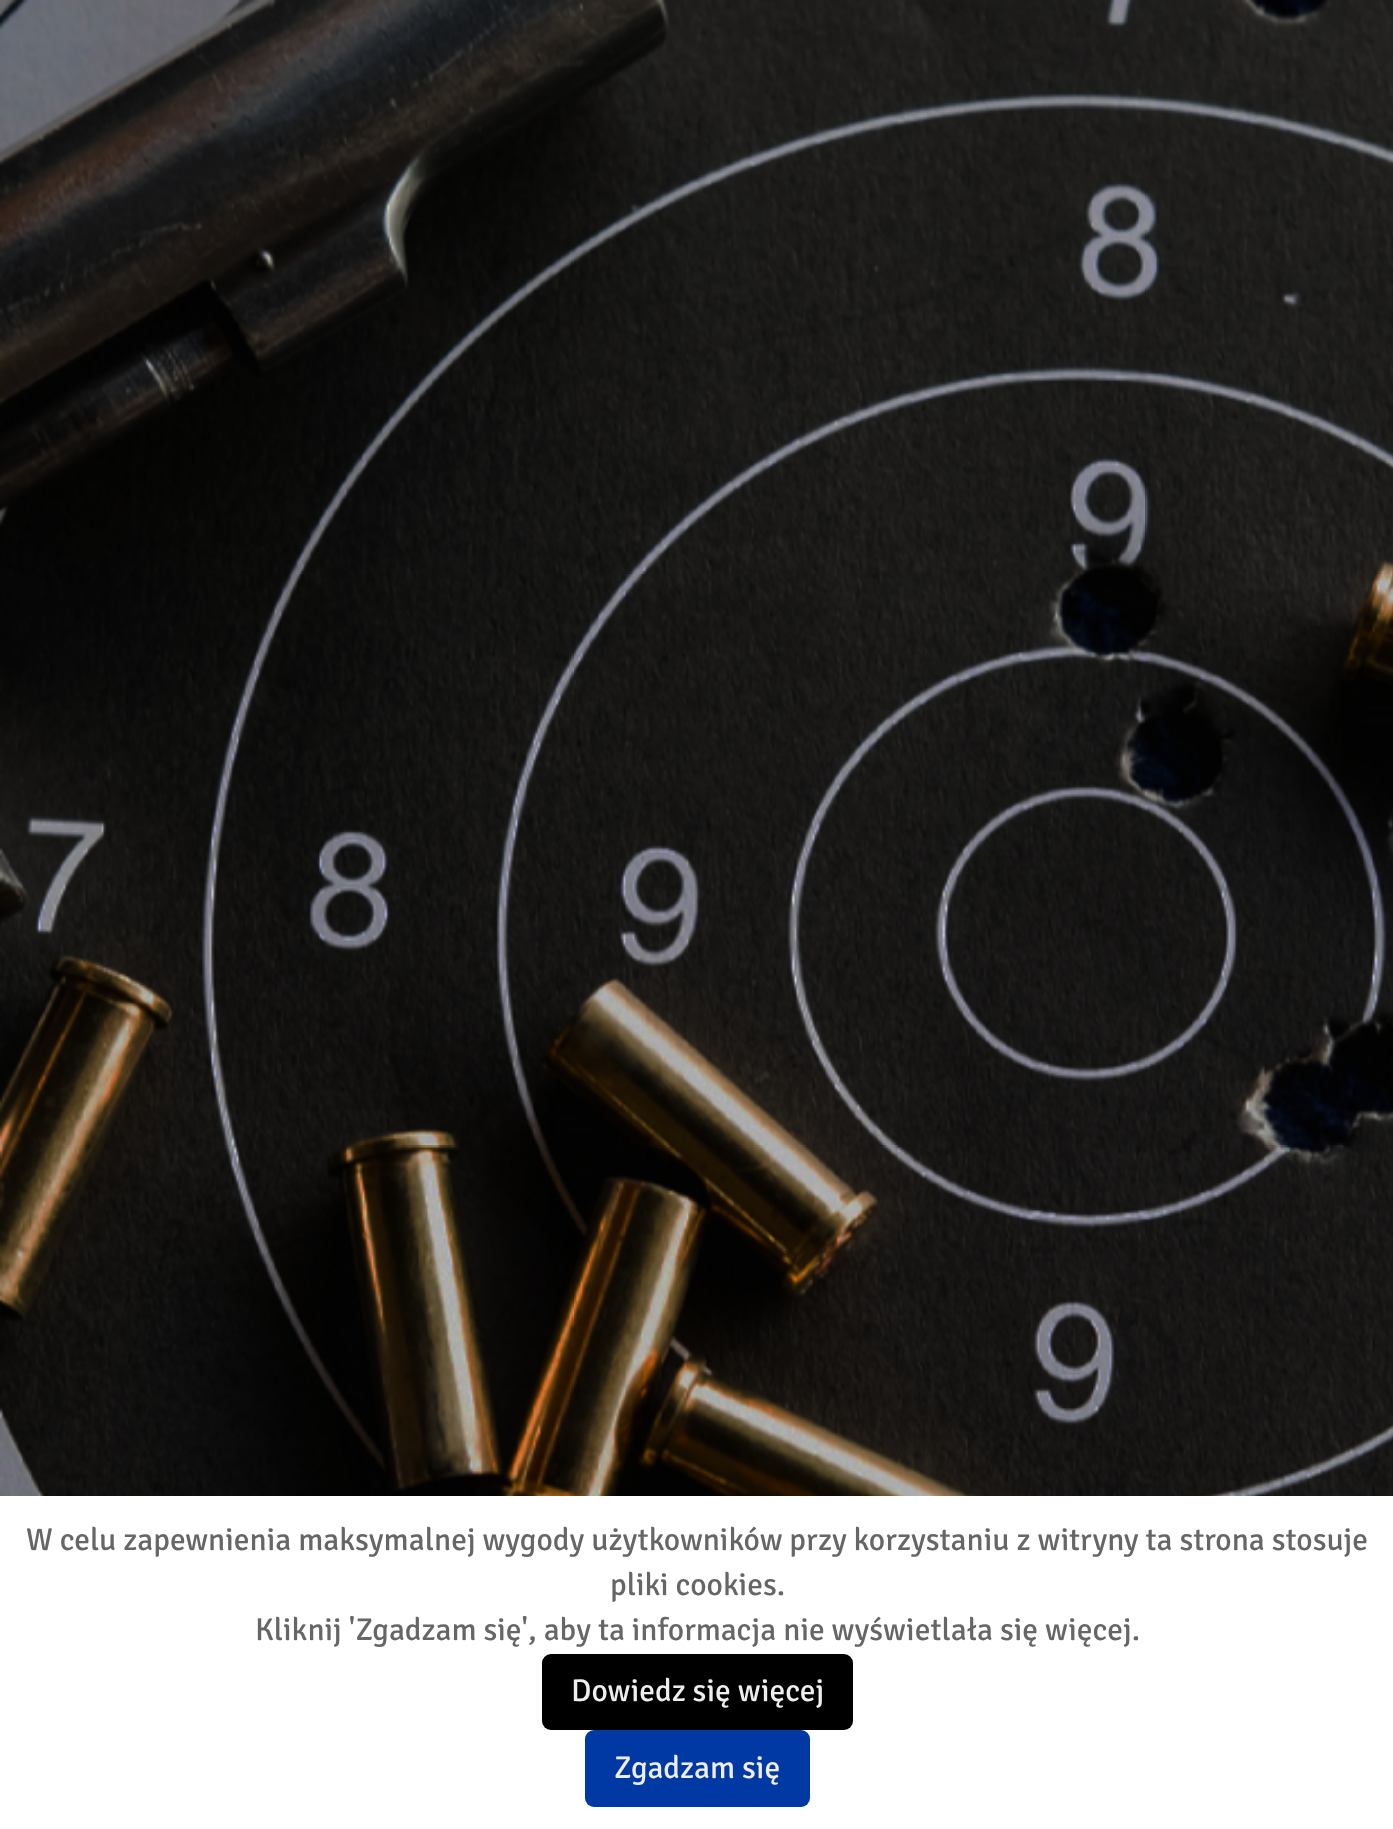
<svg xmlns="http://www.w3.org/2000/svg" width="1393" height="1829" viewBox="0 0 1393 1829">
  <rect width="100%" height="100%" fill="rgb(255,255,255)"/>
  <image x="0" y="0" width="1393" height="1496" href="pic1.png"/>
  <g font-family="Signika" font-size="31.5" fill="rgb(102,102,102)">
    <text x="26" y="1550">W celu zapewnienia maksymalnej wygody użytkowników przy korzystaniu z witryny ta strona stosuje</text>
    <text x="610" y="1595">pliki cookies.</text>
    <text x="255" y="1640">Kliknij 'Zgadzam się', aby ta informacja nie wyświetlała się więcej.</text>
  </g>
  <rect x="542" y="1654" width="311" height="76" rx="9" fill="rgb(0,0,0)"/>
  <text x="571" y="1701" font-family="Signika" font-size="31.5" fill="rgb(238,238,238)">Dowiedz się więcej</text>
  <rect x="585" y="1730" width="225" height="77" rx="9" fill="rgb(0,57,163)"/>
  <text x="614" y="1778" font-family="Signika" font-size="31.5" fill="rgb(238,238,238)">Zgadzam się</text>
</svg>
